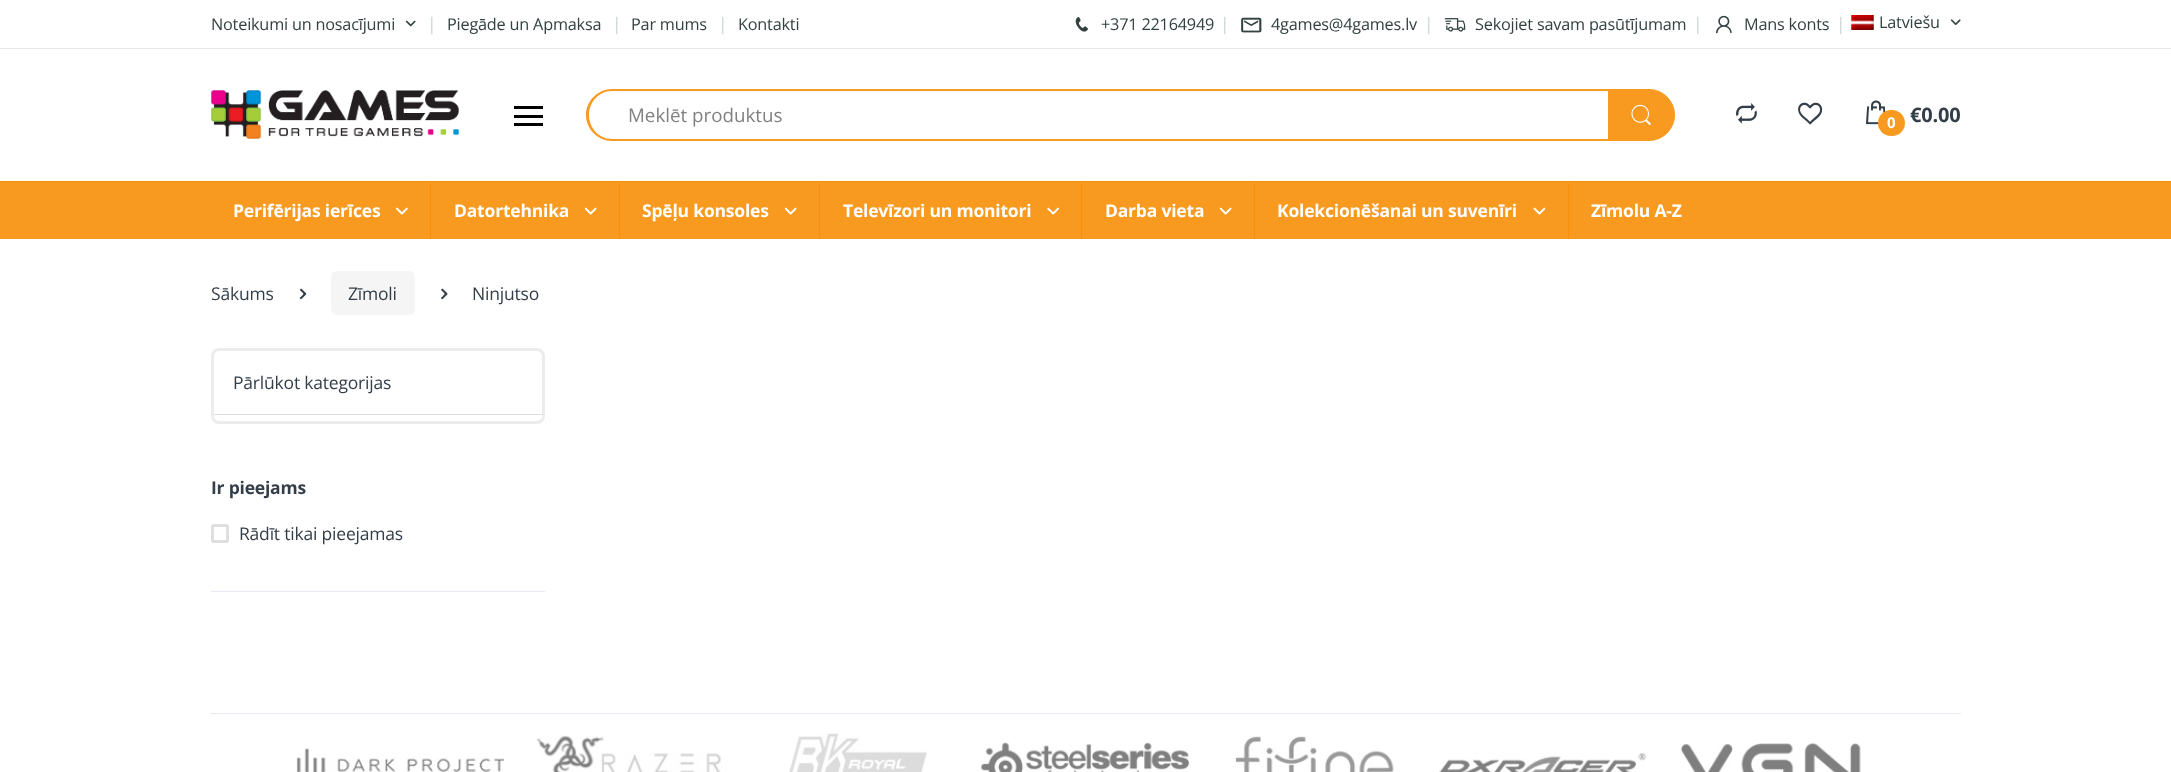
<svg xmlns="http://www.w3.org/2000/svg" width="2171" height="772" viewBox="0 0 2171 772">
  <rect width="100%" height="100%" fill="rgb(255,255,255)"/>
  <rect x="0" y="48" width="2171" height="1" fill="rgb(232,232,232)"/>
  <text x="211" y="30" font-family="Open Sans" font-size="16.25" letter-spacing="-0.2" fill="rgb(51,65,65)">Noteikumi un nosacījumi</text>
  <image x="405" y="20" width="11" height="7" href="pic1.png"/>
  <text x="427" y="30" font-family="Open Sans" font-size="17.5" letter-spacing="-0.2" fill="rgb(202,213,213)">|</text>
  <text x="447" y="30" font-family="Open Sans" font-size="16.25" letter-spacing="-0.2" fill="rgb(51,65,65)">Piegāde un Apmaksa</text>
  <text x="612" y="30" font-family="Open Sans" font-size="17.5" letter-spacing="-0.2" fill="rgb(202,213,213)">|</text>
  <text x="631" y="30" font-family="Open Sans" font-size="16.25" letter-spacing="-0.2" fill="rgb(51,65,65)">Par mums</text>
  <text x="718" y="30" font-family="Open Sans" font-size="17.5" letter-spacing="-0.2" fill="rgb(202,213,213)">|</text>
  <text x="738" y="30" font-family="Open Sans" font-size="16.25" letter-spacing="-0.2" fill="rgb(51,65,65)">Kontakti</text>
  <image x="1075" y="17" width="13" height="15" href="pic2.png"/>
  <text x="1101" y="30" font-family="Open Sans" font-size="16.25" letter-spacing="-0.2" fill="rgb(51,65,65)">+371 22164949</text>
  <text x="1220" y="30" font-family="Open Sans" font-size="17.5" letter-spacing="-0.2" fill="rgb(202,213,213)">|</text>
  <image x="1241" y="17" width="21" height="16" href="pic3.png"/>
  <text x="1271" y="30" font-family="Open Sans" font-size="16.25" letter-spacing="-0.2" fill="rgb(51,65,65)">4games@4games.lv</text>
  <text x="1424" y="30" font-family="Open Sans" font-size="17.5" letter-spacing="-0.2" fill="rgb(202,213,213)">|</text>
  <image x="1444" y="18" width="22" height="14" href="pic4.png"/>
  <text x="1475" y="30" font-family="Open Sans" font-size="16.25" letter-spacing="-0.2" fill="rgb(51,65,65)">Sekojiet savam pasūtījumam</text>
  <text x="1693" y="30" font-family="Open Sans" font-size="17.5" letter-spacing="-0.2" fill="rgb(202,213,213)">|</text>
  <image x="1716" y="15" width="16" height="19" href="pic5.png"/>
  <text x="1744" y="30" font-family="Open Sans" font-size="16.25" letter-spacing="-0.2" fill="rgb(51,65,65)">Mans konts</text>
  <text x="1836" y="30" font-family="Open Sans" font-size="17.5" letter-spacing="-0.2" fill="rgb(202,213,213)">|</text>
  <image x="1851" y="15" width="23" height="15" href="pic6.png"/>
  <text x="1879" y="28" font-family="Open Sans" font-size="16.25" letter-spacing="-0.2" fill="rgb(51,65,65)">Latviešu</text>
  <image x="1950" y="19" width="11" height="6" href="pic7.png"/>
  <image x="211" y="90" width="248" height="49" href="pic8.png"/>
  <rect x="514" y="106" width="29" height="3" fill="rgb(0,0,0)"/>
  <rect x="514" y="115" width="29" height="3" fill="rgb(0,0,0)"/>
  <rect x="514" y="123" width="29" height="3" fill="rgb(0,0,0)"/>
  <path d="M612 89H1609V141H612C598 141 586 129 586 115C586 101 598 89 612 89ZM612 91H1609V139H612C599 139 589 128 589 115C589 102 599 91 612 91Z" fill="rgb(248,154,32)" fill-rule="evenodd"/>
  <text x="628" y="122" font-family="Open Sans" font-size="18.75" fill="rgb(129,129,129)">Meklēt produktus</text>
  <path d="M1608.5 89.5H1649C1663 89.5 1674.5 101 1674.5 115C1674.5 129 1663 140.5 1649 140.5H1608.5Z" fill="rgb(248,154,32)" stroke="rgb(248,154,32)"/>
  <image x="1631" y="104" width="20" height="22" href="pic9.png"/>
  <image x="1736" y="103" width="21" height="21" href="pic10.png"/>
  <image x="1798" y="102" width="25" height="23" href="pic11.png"/>
  <image x="1865" y="100" width="21" height="25" href="pic12.png"/>
  <rect x="1878" y="110" width="27" height="26" rx="13" fill="rgb(248,154,32)"/>
  <text x="1887" y="128" font-family="Open Sans" font-size="15" font-weight="bold" letter-spacing="-0.2" fill="rgb(255,255,255)">0</text>
  <text x="1910" y="122" font-family="Open Sans" font-size="20" font-weight="bold" letter-spacing="-0.2" fill="rgb(51,62,72)">€0.00</text>
  <rect x="0" y="182" width="2171" height="57" fill="rgb(248,154,32)"/>
  <rect x="0" y="181" width="2171" height="1" fill="rgb(247,143,8)"/>
  <text x="233" y="217" font-family="Open Sans" font-size="17.5" font-weight="bold" letter-spacing="-0.2" fill="rgb(255,255,255)">Perifērijas ierīces</text>
  <image x="396" y="207" width="12" height="8" href="pic13.png"/>
  <rect x="430" y="183" width="1" height="56" fill="rgb(247,143,8)"/>
  <text x="454" y="217" font-family="Open Sans" font-size="17.5" font-weight="bold" letter-spacing="-0.2" fill="rgb(255,255,255)">Datortehnika</text>
  <image x="584" y="207" width="13" height="8" href="pic14.png"/>
  <rect x="619" y="183" width="1" height="56" fill="rgb(247,143,8)"/>
  <text x="642" y="217" font-family="Open Sans" font-size="17.5" font-weight="bold" letter-spacing="-0.2" fill="rgb(255,255,255)">Spēļu konsoles</text>
  <image x="784" y="207" width="13" height="8" href="pic14.png"/>
  <rect x="819" y="183" width="1" height="56" fill="rgb(247,143,8)"/>
  <text x="843" y="217" font-family="Open Sans" font-size="17.5" font-weight="bold" letter-spacing="-0.2" fill="rgb(255,255,255)">Televīzori un monitori</text>
  <image x="1047" y="207" width="12" height="8" href="pic15.png"/>
  <rect x="1081" y="183" width="1" height="56" fill="rgb(247,143,8)"/>
  <text x="1105" y="217" font-family="Open Sans" font-size="17.5" font-weight="bold" letter-spacing="-0.2" fill="rgb(255,255,255)">Darba vieta</text>
  <image x="1219" y="207" width="13" height="8" href="pic14.png"/>
  <rect x="1254" y="183" width="1" height="56" fill="rgb(247,143,8)"/>
  <text x="1277" y="217" font-family="Open Sans" font-size="17.5" font-weight="bold" letter-spacing="-0.2" fill="rgb(255,255,255)">Kolekcionēšanai un suvenīri</text>
  <image x="1533" y="207" width="13" height="8" href="pic16.png"/>
  <rect x="1568" y="183" width="1" height="56" fill="rgb(247,143,8)"/>
  <text x="1591" y="217" font-family="Open Sans" font-size="17.5" font-weight="bold" letter-spacing="-0.2" fill="rgb(255,255,255)">Zīmolu A-Z</text>
  <text x="211" y="300" font-family="Open Sans" font-size="17.5" letter-spacing="-0.2" fill="rgb(51,62,72)">Sākums</text>
  <image x="299" y="288" width="8" height="12" href="pic17.png"/>
  <rect x="331" y="271" width="84" height="44" rx="6" fill="rgb(245,245,245)"/>
  <text x="348" y="300" font-family="Open Sans" font-size="17.5" letter-spacing="-0.2" fill="rgb(51,62,72)">Zīmoli</text>
  <image x="441" y="288" width="7" height="12" href="pic18.png"/>
  <text x="472" y="300" font-family="Open Sans" font-size="17.5" letter-spacing="-0.2" fill="rgb(51,62,72)">Ninjutso</text>
  <rect x="212.5" y="349.5" width="331" height="73" rx="6.5" fill="none" stroke="rgb(236,236,236)" stroke-width="3"/>
  <rect x="214" y="414" width="329" height="1" fill="rgb(221,221,221)"/>
  <text x="233" y="389" font-family="Open Sans" font-size="17.5" letter-spacing="-0.2" fill="rgb(51,62,72)">Pārlūkot kategorijas</text>
  <rect x="211" y="591" width="334" height="1" fill="rgb(231,234,243)"/>
  <text x="211" y="494" font-family="Open Sans" font-size="17.5" font-weight="bold" letter-spacing="-0.2" fill="rgb(51,62,72)">Ir pieejams</text>
  <rect x="212.5" y="525.5" width="15" height="16" rx="1" fill="none" stroke="rgb(223,223,223)" stroke-width="3"/>
  <text x="239" y="540" font-family="Open Sans" font-size="17.5" letter-spacing="-0.2" fill="rgb(51,62,72)">Rādīt tikai pieejamas</text>
  <rect x="211" y="713" width="1750" height="1" fill="rgb(231,234,243)"/>
  <image x="296" y="748" width="209" height="24" href="pic19.png"/>
  <image x="536" y="735" width="185" height="37" href="pic20.png"/>
  <image x="789" y="733" width="138" height="39" href="pic21.png"/>
  <image x="981" y="742" width="208" height="30" href="pic22.png"/>
  <image x="1235" y="736" width="159" height="36" href="pic23.png"/>
  <image x="1438" y="752" width="209" height="20" href="pic24.png"/>
  <image x="1680" y="743" width="181" height="29" href="pic25.png"/>
</svg>
